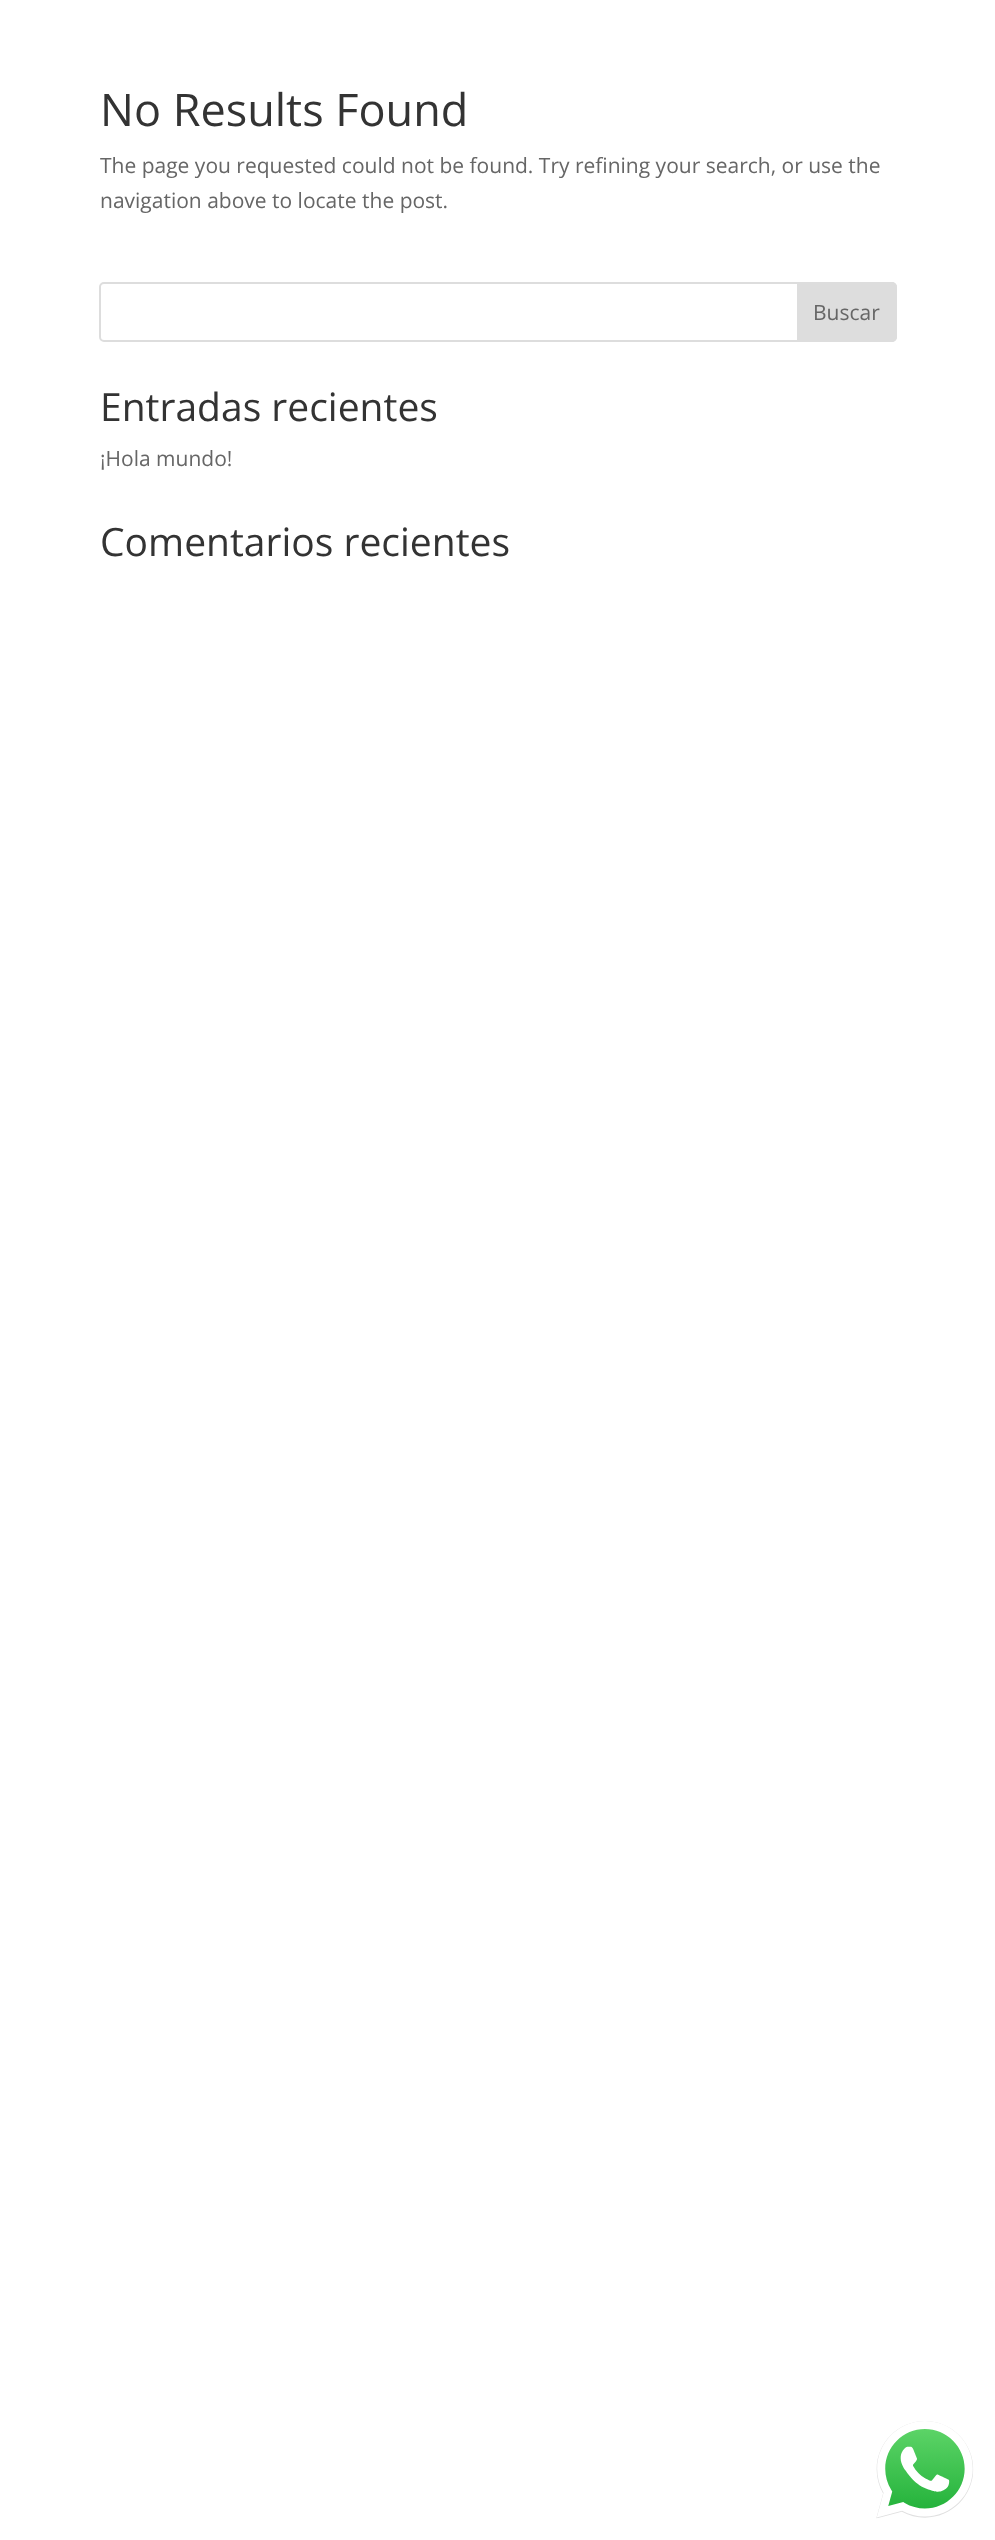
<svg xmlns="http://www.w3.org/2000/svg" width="995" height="2540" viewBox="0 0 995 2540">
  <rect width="100%" height="100%" fill="rgb(255,255,255)"/>
  <text x="100" y="126" font-family="Open Sans" font-size="45" fill="rgb(51,51,51)">No Results Found</text>
  <g font-family="Open Sans" font-size="21" fill="rgb(102,102,102)">
    <text>
      <tspan x="100" y="173">The page you requested could not be found. Try refining your search, or use the</tspan>
      <tspan x="100" y="208">navigation above to locate the post.</tspan>
    </text>
  </g>
  <rect x="100" y="283" width="796" height="58" rx="4" fill="none" stroke="rgb(221,221,221)" stroke-width="2"/>
  <path d="M798 283H892C894 283 896 285 896 287V337C896 339 894 341 892 341H798Z" fill="rgb(221,221,221)" stroke="rgb(221,221,221)" stroke-width="2"/>
  <text x="813" y="320" font-family="Open Sans" font-size="21" fill="rgb(102,102,102)">Buscar</text>
  <text x="100" y="421" font-family="Open Sans" font-size="39" fill="rgb(51,51,51)">Entradas recientes</text>
  <text x="100" y="466" font-family="Open Sans" font-size="21" fill="rgb(102,102,102)">¡Hola mundo!</text>
  <text x="100" y="556" font-family="Open Sans" font-size="39" fill="rgb(51,51,51)">Comentarios recientes</text>
  <image x="876" y="2421" width="98" height="98" href="pic1.png"/>
</svg>
